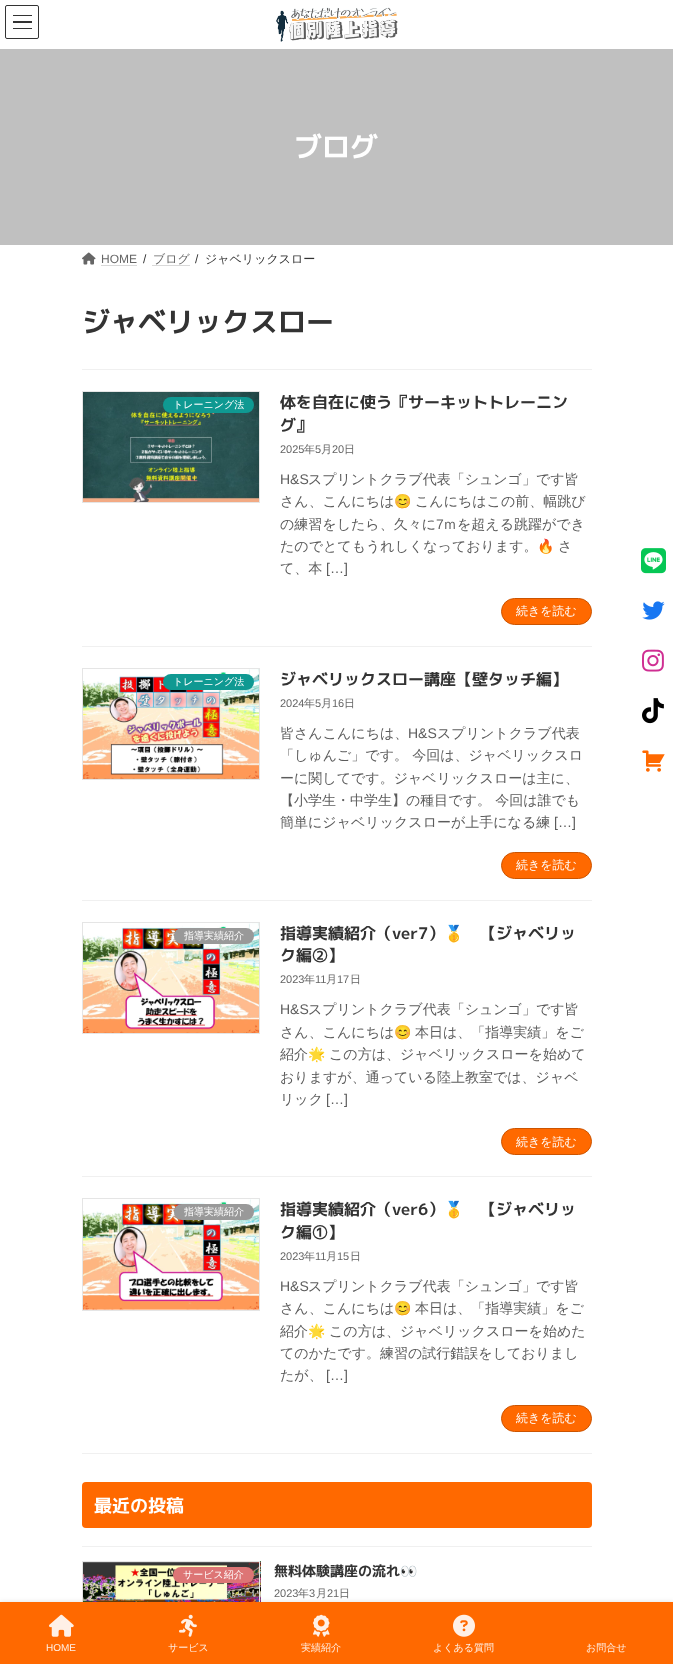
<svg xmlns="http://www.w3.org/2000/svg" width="673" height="1664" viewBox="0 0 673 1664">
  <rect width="100%" height="100%" fill="rgb(255,255,255)"/>
  <rect x="13" y="15" width="19" height="1" fill="rgb(51,51,51)"/>
  <rect x="13" y="21" width="19" height="2" fill="rgb(51,51,51)"/>
  <rect x="13" y="28" width="19" height="1" fill="rgb(51,51,51)"/>
  <rect x="5.5" y="5.5" width="33" height="33" rx="1.5" fill="none" stroke="rgb(51,51,51)"/>
  <image x="276" y="7" width="122" height="35" href="pic1.png"/>
  <rect x="0" y="49" width="673" height="196" fill="rgb(192,192,192)"/>
  <text x="294" y="157" font-family="'M PLUS 1p'" font-size="28" font-weight="bold" fill="rgb(255,255,255)">ブログ</text>
  <image x="82" y="252" width="14" height="13" href="pic2.png"/>
  <text x="101" y="263" font-family="Liberation Sans" font-size="12" fill="rgb(102,102,102)">HOME</text>
  <path d="M101.5 265.5H137.5" fill="none" stroke="rgb(179,179,179)" stroke-dasharray="1 1"/>
  <text x="143" y="263" font-family="Liberation Sans" font-size="12" fill="rgb(51,51,51)">/</text>
  <text x="153" y="263" font-family="WenQuanYi Zen Hei" font-size="12" font-weight="500" fill="rgb(102,102,102)">ブログ</text>
  <path d="M152.5 265.5H189.5" fill="none" stroke="rgb(179,179,179)" stroke-dasharray="1 1"/>
  <text x="195" y="263" font-family="Liberation Sans" font-size="12" fill="rgb(51,51,51)">/</text>
  <text x="205" y="263" font-family="WenQuanYi Zen Hei" font-size="12" font-weight="500" fill="rgb(51,51,51)">ジャベリックスロー</text>
  <text x="82" y="332" font-family="'M PLUS 1p'" font-size="28" font-weight="bold" fill="rgb(51,51,51)">ジャベリックスロー</text>
  <rect x="82" y="369" width="510" height="1" fill="rgb(240,240,240)"/>
  <rect x="82" y="646" width="510" height="1" fill="rgb(240,240,240)"/>
  <image x="83" y="392" width="176" height="110" href="pic3.png"/>
  <rect x="82.5" y="391.5" width="177" height="111" fill="none" stroke="rgb(229,229,229)"/>
  <rect x="163" y="397" width="91" height="16" rx="8" fill="rgb(15,153,146)"/>
  <text x="173" y="408" font-family="WenQuanYi Zen Hei" font-size="10" font-weight="500" fill="rgb(255,255,255)">トレーニング法</text>
  <g font-family="'M PLUS 1p'" font-size="16" font-weight="bold" fill="rgb(51,51,51)">
    <text>
      <tspan x="280" y="408">体を自在に使う『サーキットトレーニン</tspan>
      <tspan x="280" y="431">グ』</tspan>
    </text>
  </g>
  <text x="280" y="453" font-family="Liberation Sans" font-size="11" fill="rgb(102,102,102)">2025</text>
  <text x="304" y="453" font-family="WenQuanYi Zen Hei" font-size="11" font-weight="500" fill="rgb(102,102,102)">年</text>
  <text x="315" y="453" font-family="Liberation Sans" font-size="11" fill="rgb(102,102,102)">5</text>
  <text x="321" y="453" font-family="WenQuanYi Zen Hei" font-size="11" font-weight="500" fill="rgb(102,102,102)">月</text>
  <text x="332" y="453" font-family="Liberation Sans" font-size="11" fill="rgb(102,102,102)">20</text>
  <text x="344" y="453" font-family="WenQuanYi Zen Hei" font-size="11" font-weight="500" fill="rgb(102,102,102)">日</text>
  <text x="280" y="484" font-family="Liberation Sans" font-size="14" fill="rgb(92,92,92)">H&amp;S</text>
  <g font-family="WenQuanYi Zen Hei" font-size="14" font-weight="500" fill="rgb(92,92,92)">
    <text x="308" y="484">スプリントクラブ代表「シュンゴ」です皆</text>
    <text x="280" y="506">さん、こんにちは</text>
  </g>
  <text x="394" y="506" font-family="Noto Color Emoji" font-size="14" fill="rgb(92,92,92)">😊</text>
  <g font-family="WenQuanYi Zen Hei" font-size="14" font-weight="500" fill="rgb(92,92,92)">
    <text x="415" y="506">こんにちはこの前、幅跳び</text>
    <text x="280" y="529">の練習をしたら、久々に</text>
  </g>
  <text x="436" y="529" font-family="Liberation Sans" font-size="14" fill="rgb(92,92,92)">7</text>
  <g font-family="WenQuanYi Zen Hei" font-size="14" font-weight="500" fill="rgb(92,92,92)">
    <text x="443" y="529">ｍを超える跳躍ができ</text>
    <text x="280" y="551">たのでとてもうれしくなっております。</text>
  </g>
  <text x="537" y="551" font-family="Noto Color Emoji" font-size="14" fill="rgb(92,92,92)">🔥</text>
  <g font-family="WenQuanYi Zen Hei" font-size="14" font-weight="500" fill="rgb(92,92,92)">
    <text x="558" y="551">さ</text>
    <text x="280" y="573">て、本</text>
  </g>
  <text x="326" y="573" font-family="Liberation Sans" font-size="14" fill="rgb(92,92,92)">[…]</text>
  <rect x="501.5" y="598.5" width="90" height="26" rx="13" fill="rgb(255,105,0)" stroke="rgb(204,84,0)"/>
  <text x="516" y="615" font-family="WenQuanYi Zen Hei" font-size="12" font-weight="500" fill="rgb(255,255,255)">続きを読む</text>
  <rect x="82" y="900" width="510" height="1" fill="rgb(240,240,240)"/>
  <image x="83" y="669" width="176" height="110" href="pic4.png"/>
  <rect x="82.5" y="668.5" width="177" height="111" fill="none" stroke="rgb(229,229,229)"/>
  <rect x="163" y="674" width="91" height="16" rx="8" fill="rgb(15,153,146)"/>
  <text x="173" y="685" font-family="WenQuanYi Zen Hei" font-size="10" font-weight="500" fill="rgb(255,255,255)">トレーニング法</text>
  <text x="280" y="685" font-family="'M PLUS 1p'" font-size="16" font-weight="bold" fill="rgb(51,51,51)">ジャベリックスロー講座【壁タッチ編】</text>
  <text x="280" y="707" font-family="Liberation Sans" font-size="11" fill="rgb(102,102,102)">2024</text>
  <text x="304" y="707" font-family="WenQuanYi Zen Hei" font-size="11" font-weight="500" fill="rgb(102,102,102)">年</text>
  <text x="315" y="707" font-family="Liberation Sans" font-size="11" fill="rgb(102,102,102)">5</text>
  <text x="321" y="707" font-family="WenQuanYi Zen Hei" font-size="11" font-weight="500" fill="rgb(102,102,102)">月</text>
  <text x="332" y="707" font-family="Liberation Sans" font-size="11" fill="rgb(102,102,102)">16</text>
  <text x="344" y="707" font-family="WenQuanYi Zen Hei" font-size="11" font-weight="500" fill="rgb(102,102,102)">日</text>
  <text x="280" y="738" font-family="WenQuanYi Zen Hei" font-size="14" font-weight="500" fill="rgb(92,92,92)">皆さんこんにちは、</text>
  <text x="408" y="738" font-family="Liberation Sans" font-size="14" fill="rgb(92,92,92)">H&amp;S</text>
  <g font-family="WenQuanYi Zen Hei" font-size="14" font-weight="500" fill="rgb(92,92,92)">
    <text x="437" y="738">スプリントクラブ代表</text>
    <text>
      <tspan x="280" y="760">「しゅんご」です。 今回は、ジャベリックスロ</tspan>
      <tspan x="280" y="783">ーに関してです。ジャベリックスローは主に、</tspan>
      <tspan x="280" y="805">【小学生・中学生】の種目です。 今回は誰でも</tspan>
      <tspan x="280" y="827">簡単にジャベリックスローが上手になる練</tspan>
    </text>
  </g>
  <text x="554" y="827" font-family="Liberation Sans" font-size="14" fill="rgb(92,92,92)">[…]</text>
  <rect x="501.5" y="852.5" width="90" height="26" rx="13" fill="rgb(255,105,0)" stroke="rgb(204,84,0)"/>
  <text x="516" y="869" font-family="WenQuanYi Zen Hei" font-size="12" font-weight="500" fill="rgb(255,255,255)">続きを読む</text>
  <rect x="82" y="1176" width="510" height="1" fill="rgb(240,240,240)"/>
  <image x="83" y="923" width="176" height="110" href="pic5.png"/>
  <rect x="82.5" y="922.5" width="177" height="111" fill="none" stroke="rgb(229,229,229)"/>
  <rect x="174" y="928" width="80" height="16" rx="8" fill="rgb(153,153,153)"/>
  <text x="184" y="939" font-family="WenQuanYi Zen Hei" font-size="10" font-weight="500" fill="rgb(255,255,255)">指導実績紹介</text>
  <text x="280" y="939" font-family="'M PLUS 1p'" font-size="16" font-weight="bold" fill="rgb(51,51,51)">指導実績紹介（ver7）</text>
  <text x="444" y="939" font-family="Noto Color Emoji" font-size="16" font-weight="bold" fill="rgb(51,51,51)">🥇</text>
  <g font-family="'M PLUS 1p'" font-size="16" font-weight="bold" fill="rgb(51,51,51)">
    <text x="480" y="939">【ジャベリッ</text>
    <text x="280" y="961">ク編②】</text>
  </g>
  <text x="280" y="983" font-family="Liberation Sans" font-size="11" fill="rgb(102,102,102)">2023</text>
  <text x="304" y="983" font-family="WenQuanYi Zen Hei" font-size="11" font-weight="500" fill="rgb(102,102,102)">年</text>
  <text x="315" y="983" font-family="Liberation Sans" font-size="11" fill="rgb(102,102,102)">11</text>
  <text x="326" y="983" font-family="WenQuanYi Zen Hei" font-size="11" font-weight="500" fill="rgb(102,102,102)">月</text>
  <text x="337" y="983" font-family="Liberation Sans" font-size="11" fill="rgb(102,102,102)">17</text>
  <text x="350" y="983" font-family="WenQuanYi Zen Hei" font-size="11" font-weight="500" fill="rgb(102,102,102)">日</text>
  <text x="280" y="1014" font-family="Liberation Sans" font-size="14" fill="rgb(92,92,92)">H&amp;S</text>
  <g font-family="WenQuanYi Zen Hei" font-size="14" font-weight="500" fill="rgb(92,92,92)">
    <text x="308" y="1014">スプリントクラブ代表「シュンゴ」です皆</text>
    <text x="280" y="1037">さん、こんにちは</text>
  </g>
  <text x="394" y="1037" font-family="Noto Color Emoji" font-size="14" fill="rgb(92,92,92)">😊</text>
  <g font-family="WenQuanYi Zen Hei" font-size="14" font-weight="500" fill="rgb(92,92,92)">
    <text x="415" y="1037">本日は、「指導実績」をご</text>
    <text x="280" y="1059">紹介</text>
  </g>
  <text x="308" y="1059" font-family="Noto Color Emoji" font-size="14" fill="rgb(92,92,92)">🌟</text>
  <g font-family="WenQuanYi Zen Hei" font-size="14" font-weight="500" fill="rgb(92,92,92)">
    <text x="329" y="1059">この方は、ジャベリックスローを始めて</text>
    <text>
      <tspan x="280" y="1082">おりますが、通っている陸上教室では、ジャベ</tspan>
      <tspan x="280" y="1104">リック</tspan>
    </text>
  </g>
  <text x="326" y="1104" font-family="Liberation Sans" font-size="14" fill="rgb(92,92,92)">[…]</text>
  <rect x="501.5" y="1128.5" width="90" height="26" rx="13" fill="rgb(255,105,0)" stroke="rgb(204,84,0)"/>
  <text x="516" y="1146" font-family="WenQuanYi Zen Hei" font-size="12" font-weight="500" fill="rgb(255,255,255)">続きを読む</text>
  <rect x="82" y="1453" width="510" height="1" fill="rgb(240,240,240)"/>
  <image x="83" y="1199" width="176" height="111" href="pic6.png"/>
  <rect x="82.5" y="1198.5" width="177" height="112" fill="none" stroke="rgb(229,229,229)"/>
  <rect x="174" y="1204" width="80" height="16" rx="8" fill="rgb(153,153,153)"/>
  <text x="184" y="1215" font-family="WenQuanYi Zen Hei" font-size="10" font-weight="500" fill="rgb(255,255,255)">指導実績紹介</text>
  <text x="280" y="1215" font-family="'M PLUS 1p'" font-size="16" font-weight="bold" fill="rgb(51,51,51)">指導実績紹介（ver6）</text>
  <text x="444" y="1215" font-family="Noto Color Emoji" font-size="16" font-weight="bold" fill="rgb(51,51,51)">🥇</text>
  <g font-family="'M PLUS 1p'" font-size="16" font-weight="bold" fill="rgb(51,51,51)">
    <text x="480" y="1215">【ジャベリッ</text>
    <text x="280" y="1238">ク編①】</text>
  </g>
  <text x="280" y="1260" font-family="Liberation Sans" font-size="11" fill="rgb(102,102,102)">2023</text>
  <text x="304" y="1260" font-family="WenQuanYi Zen Hei" font-size="11" font-weight="500" fill="rgb(102,102,102)">年</text>
  <text x="315" y="1260" font-family="Liberation Sans" font-size="11" fill="rgb(102,102,102)">11</text>
  <text x="326" y="1260" font-family="WenQuanYi Zen Hei" font-size="11" font-weight="500" fill="rgb(102,102,102)">月</text>
  <text x="337" y="1260" font-family="Liberation Sans" font-size="11" fill="rgb(102,102,102)">15</text>
  <text x="350" y="1260" font-family="WenQuanYi Zen Hei" font-size="11" font-weight="500" fill="rgb(102,102,102)">日</text>
  <text x="280" y="1291" font-family="Liberation Sans" font-size="14" fill="rgb(92,92,92)">H&amp;S</text>
  <g font-family="WenQuanYi Zen Hei" font-size="14" font-weight="500" fill="rgb(92,92,92)">
    <text x="308" y="1291">スプリントクラブ代表「シュンゴ」です皆</text>
    <text x="280" y="1313">さん、こんにちは</text>
  </g>
  <text x="394" y="1313" font-family="Noto Color Emoji" font-size="14" fill="rgb(92,92,92)">😊</text>
  <g font-family="WenQuanYi Zen Hei" font-size="14" font-weight="500" fill="rgb(92,92,92)">
    <text x="415" y="1313">本日は、「指導実績」をご</text>
    <text x="280" y="1336">紹介</text>
  </g>
  <text x="308" y="1336" font-family="Noto Color Emoji" font-size="14" fill="rgb(92,92,92)">🌟</text>
  <g font-family="WenQuanYi Zen Hei" font-size="14" font-weight="500" fill="rgb(92,92,92)">
    <text x="329" y="1336">この方は、ジャベリックスローを始めた</text>
    <text>
      <tspan x="280" y="1358">てのかたです。練習の試行錯誤をしておりまし</tspan>
      <tspan x="280" y="1380">たが、</tspan>
    </text>
  </g>
  <text x="326" y="1380" font-family="Liberation Sans" font-size="14" fill="rgb(92,92,92)">[…]</text>
  <rect x="501.5" y="1405.5" width="90" height="26" rx="13" fill="rgb(255,105,0)" stroke="rgb(204,84,0)"/>
  <text x="516" y="1422" font-family="WenQuanYi Zen Hei" font-size="12" font-weight="500" fill="rgb(255,255,255)">続きを読む</text>
  <rect x="82" y="1482" width="510" height="46" rx="4" fill="rgb(255,105,0)"/>
  <text x="94" y="1512" font-family="'M PLUS 1p'" font-size="18" font-weight="bold" fill="rgb(255,255,255)">最近の投稿</text>
  <rect x="82" y="1546" width="510" height="1" fill="rgb(240,240,240)"/>
  <image x="83" y="1561" width="178" height="41" href="pic7.png"/>
  <rect x="82.5" y="1561.5" width="177" height="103" fill="none" stroke="rgb(229,229,229)"/>
  <rect x="173" y="1567" width="81" height="16" rx="8" fill="rgb(221,117,117)"/>
  <text x="183" y="1578" font-family="WenQuanYi Zen Hei" font-size="10" font-weight="500" fill="rgb(255,255,255)">サービス紹介</text>
  <text x="274" y="1576" font-family="'M PLUS 1p'" font-size="14" font-weight="bold" fill="rgb(51,51,51)">無料体験講座の流れ</text>
  <text x="400" y="1576" font-family="'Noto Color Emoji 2'" font-size="14" font-weight="bold" fill="rgb(51,51,51)">👀</text>
  <text x="274" y="1597" font-family="Liberation Sans" font-size="11" fill="rgb(102,102,102)">2023</text>
  <text x="298" y="1597" font-family="WenQuanYi Zen Hei" font-size="11" font-weight="500" fill="rgb(102,102,102)">年</text>
  <text x="309" y="1597" font-family="Liberation Sans" font-size="11" fill="rgb(102,102,102)">3</text>
  <text x="316" y="1597" font-family="WenQuanYi Zen Hei" font-size="11" font-weight="500" fill="rgb(102,102,102)">月</text>
  <text x="327" y="1597" font-family="Liberation Sans" font-size="11" fill="rgb(102,102,102)">21</text>
  <text x="339" y="1597" font-family="WenQuanYi Zen Hei" font-size="11" font-weight="500" fill="rgb(102,102,102)">日</text>
  <image x="641" y="548" width="25" height="26" href="pic8.png"/>
  <image x="642" y="601" width="23" height="19" href="pic9.png"/>
  <image x="642" y="649" width="22" height="23" href="pic10.png"/>
  <image x="642" y="698" width="22" height="26" href="pic11.png"/>
  <image x="642" y="750" width="23" height="22" href="pic12.png"/>
  <rect x="0" y="1602" width="673" height="62" fill="rgba(0,0,0,0.12)" filter="blur(2.5px)"/>
  <rect x="0" y="1602" width="673" height="62" fill="rgb(255,105,0)"/>
  <image x="49" y="1614" width="25" height="23" href="pic13.png"/>
  <text x="46" y="1651" font-family="Liberation Sans" font-size="10" fill="rgb(255,240,230)">HOME</text>
  <image x="179" y="1614" width="18" height="23" href="pic14.png"/>
  <text x="168" y="1651" font-family="WenQuanYi Zen Hei" font-size="10" font-weight="500" fill="rgb(255,240,230)">サービス</text>
  <image x="313" y="1614" width="17" height="23" href="pic15.png"/>
  <text x="301" y="1651" font-family="WenQuanYi Zen Hei" font-size="10" font-weight="500" fill="rgb(255,240,230)">実績紹介</text>
  <image x="453" y="1614" width="22" height="23" href="pic16.png"/>
  <g font-family="WenQuanYi Zen Hei" font-size="10" font-weight="500" fill="rgb(255,240,230)">
    <text x="433" y="1651">よくある質問</text>
    <text x="586" y="1651">お問合せ</text>
  </g>
</svg>
